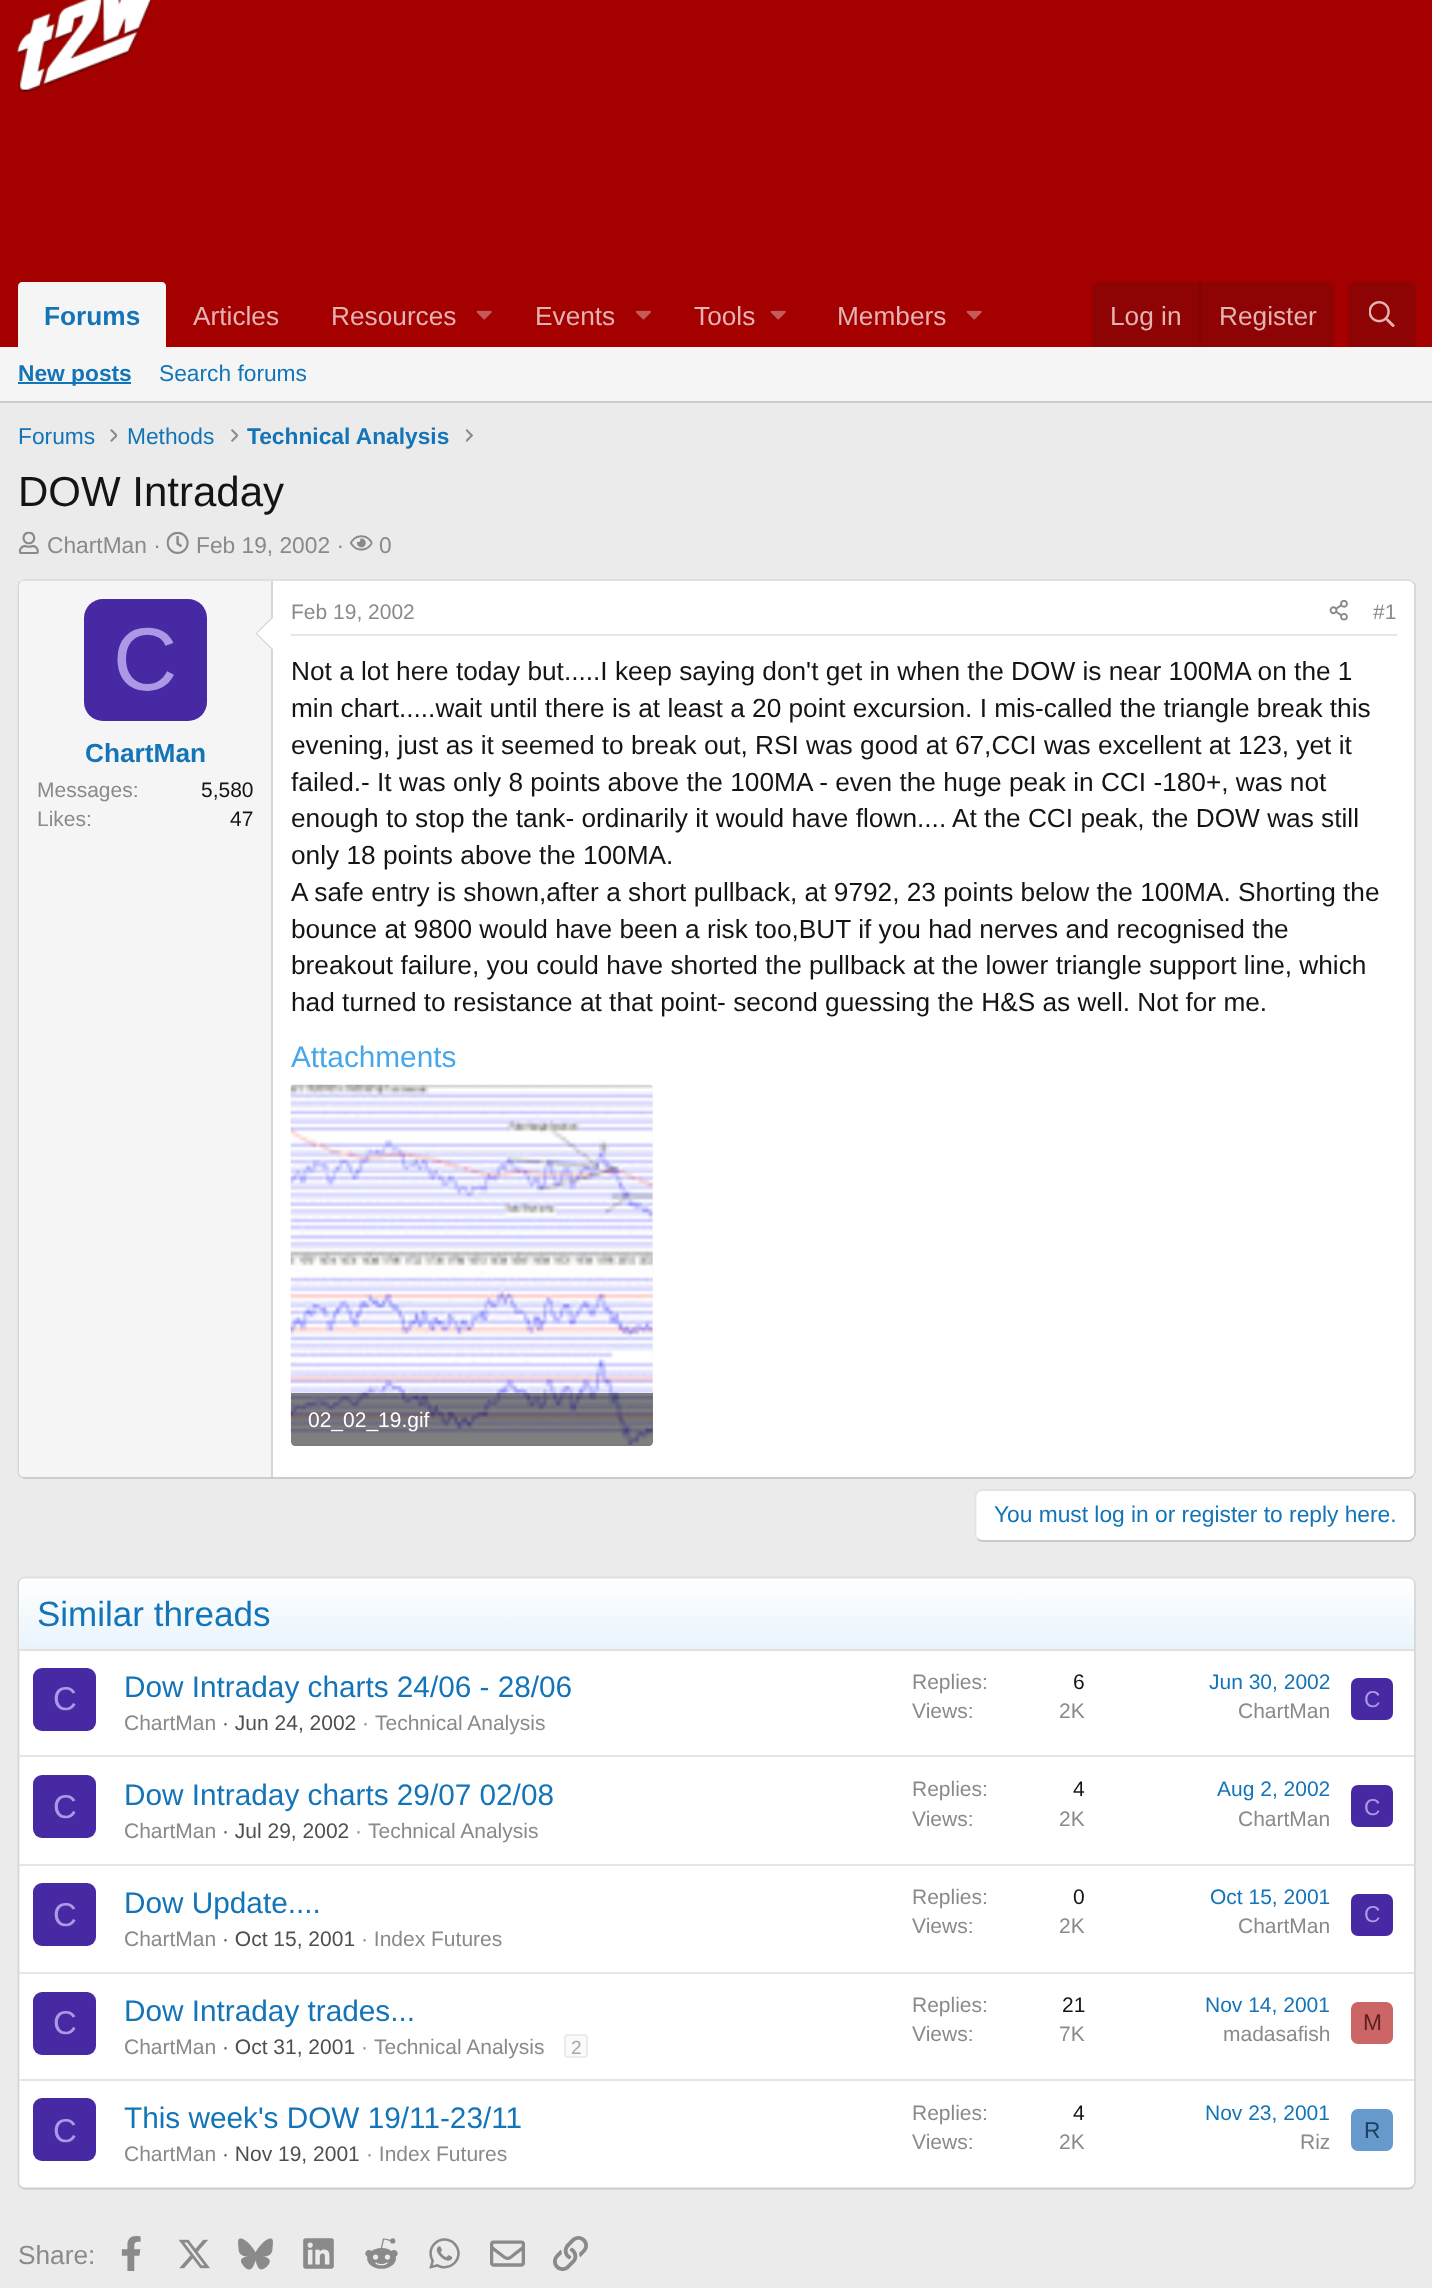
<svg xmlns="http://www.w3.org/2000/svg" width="1432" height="2288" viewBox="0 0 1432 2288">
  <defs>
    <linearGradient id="g1" gradientUnits="userSpaceOnUse" x1="717" y1="1649" x2="717" y2="1579"><stop offset="0" stop-color="rgb(232,244,252)"/><stop offset="1" stop-color="rgb(255,255,255)"/></linearGradient>
  </defs>
  <rect width="100%" height="100%" fill="rgb(235,235,235)"/>
  <rect x="0" y="0" width="1432" height="347" fill="rgb(164,0,0)"/>
  <image x="17" y="0" width="136" height="93" href="pic1.png"/>
  <path d="M22 282H162C164 282 166 284 166 286V347H18V286C18 284 20 282 22 282Z" fill="rgb(245,245,245)"/>
  <text x="44" y="325" font-family="Liberation Sans" font-size="26.25" font-weight="bold" fill="rgb(20,116,184)">Forums</text>
  <g font-family="Liberation Sans" font-size="26.25" fill="rgb(228,179,179)">
    <text x="193" y="325">Articles</text>
    <text x="331" y="325">Resources</text>
  </g>
  <image x="476" y="310" width="16" height="10" href="pic2.png"/>
  <text x="535" y="325" font-family="Liberation Sans" font-size="26.25" fill="rgb(228,179,179)">Events</text>
  <image x="635" y="310" width="16" height="10" href="pic3.png"/>
  <text x="694" y="325" font-family="Liberation Sans" font-size="26.25" fill="rgb(228,179,179)">Tools</text>
  <image x="770" y="310" width="16" height="10" href="pic2.png"/>
  <text x="837" y="325" font-family="Liberation Sans" font-size="26.25" fill="rgb(228,179,179)">Members</text>
  <image x="966" y="310" width="16" height="10" href="pic2.png"/>
  <path d="M1099 282H1327C1331 282 1334 285 1334 289V347H1092V289C1092 285 1095 282 1099 282Z" fill="rgb(142,3,3)"/>
  <text x="1110" y="325" font-family="Liberation Sans" font-size="26.25" fill="rgb(228,179,179)">Log in</text>
  <rect x="1199" y="282" width="2" height="65" fill="rgb(124,6,6)"/>
  <text x="1219" y="325" font-family="Liberation Sans" font-size="26.25" fill="rgb(228,179,179)">Register</text>
  <path d="M1355 282H1409C1413 282 1416 285 1416 289V347H1348V289C1348 285 1351 282 1355 282Z" fill="rgb(142,3,3)"/>
  <image x="1369" y="301" width="26" height="26" href="pic4.png"/>
  <rect x="0" y="347" width="1432" height="54" fill="rgb(245,245,245)"/>
  <rect x="0" y="401" width="1432" height="2" fill="rgb(204,204,204)"/>
  <rect x="18" y="382" width="113" height="2" fill="rgb(20,116,184)"/>
  <text x="18" y="381" font-family="Liberation Sans" font-size="22.75" font-weight="bold" fill="rgb(20,116,184)">New posts</text>
  <g font-family="Liberation Sans" font-size="22.75" fill="rgb(20,116,184)">
    <text x="159" y="381">Search forums</text>
    <text x="18" y="444">Forums</text>
  </g>
  <image x="110" y="429" width="7" height="13" href="pic5.png"/>
  <text x="127" y="444" font-family="Liberation Sans" font-size="22.75" fill="rgb(20,116,184)">Methods</text>
  <image x="231" y="429" width="7" height="13" href="pic6.png"/>
  <text x="247" y="444" font-family="Liberation Sans" font-size="22.75" font-weight="bold" fill="rgb(20,116,184)">Technical Analysis</text>
  <image x="466" y="429" width="7" height="13" href="pic7.png"/>
  <text x="18" y="506" font-family="Liberation Sans" font-size="42" fill="rgb(20,20,20)">DOW Intraday</text>
  <image x="18" y="531" width="21" height="23" href="pic8.png"/>
  <text x="47" y="553" font-family="Liberation Sans" font-size="22.75" fill="rgb(138,138,138)">ChartMan ·</text>
  <image x="166" y="531" width="23" height="23" href="pic9.png"/>
  <text x="196" y="553" font-family="Liberation Sans" font-size="22.75" fill="rgb(138,138,138)">Feb 19, 2002 ·</text>
  <image x="350" y="535" width="23" height="16" href="pic10.png"/>
  <text x="379" y="553" font-family="Liberation Sans" font-size="22.75" fill="rgb(138,138,138)">0</text>
  <rect x="18" y="579" width="1398" height="900" rx="7" fill="rgb(255,255,255)"/>
  <path d="M20 582C21.5 581 23 580 24.5 580H1409C1410.5 580 1412 581 1413 582" fill="none" stroke="rgb(224,224,224)" stroke-width="1.8"/>
  <path d="M1413 582C1414 583 1415 584.5 1415 586V1472C1415 1473.5 1414 1475 1413 1476" fill="none" stroke="rgb(214,214,214)" stroke-width="1.8"/>
  <path d="M1413 1476C1412 1477 1410.5 1478 1409 1478H24.5C23 1478 21.5 1477 20 1476" fill="none" stroke="rgb(204,204,204)" stroke-width="1.8"/>
  <path d="M20 1476C19 1475 18.5 1473.5 18.5 1472V586C18.5 584.5 19 583 20 582" fill="none" stroke="rgb(214,214,214)" stroke-width="1.8"/>
  <path d="M24 581H273V1477H24C21 1477 19 1475 19 1472V586C19 583 21 581 24 581Z" fill="rgb(245,245,245)"/>
  <rect x="271" y="581" width="2" height="896" fill="rgb(214,214,214)"/>
  <rect x="84" y="599" width="123" height="122" rx="19" fill="rgb(71,41,163)"/>
  <text x="113" y="690" font-family="Liberation Sans" font-size="89" fill="rgb(172,153,230)">C</text>
  <path d="M273 616V651L255.5 633.5Z" fill="rgb(214,214,214)"/>
  <path d="M273 618V649L257 633.5Z" fill="rgb(255,255,255)"/>
  <text x="85" y="762" font-family="Liberation Sans" font-size="26.25" font-weight="bold" fill="rgb(20,116,184)">ChartMan</text>
  <text x="37" y="797" font-family="Liberation Sans" font-size="21" fill="rgb(138,138,138)">Messages:</text>
  <text x="201" y="797" font-family="Liberation Sans" font-size="21" fill="rgb(20,20,20)">5,580</text>
  <text x="37" y="826" font-family="Liberation Sans" font-size="21" fill="rgb(138,138,138)">Likes:</text>
  <text x="230" y="826" font-family="Liberation Sans" font-size="21" fill="rgb(20,20,20)">47</text>
  <rect x="291" y="634" width="1106" height="2" fill="rgb(229,229,229)"/>
  <text x="291" y="619" font-family="Liberation Sans" font-size="21" fill="rgb(138,138,138)">Feb 19, 2002</text>
  <image x="1329" y="600" width="19" height="21" href="pic11.png"/>
  <text x="1373" y="619" font-family="Liberation Sans" font-size="21" fill="rgb(138,138,138)">#1</text>
  <g font-family="Liberation Sans" font-size="26.25" fill="rgb(20,20,20)">
    <text>
      <tspan x="291" y="680">Not a lot here today but.....I keep saying don't get in when the DOW is near 100MA on the 1</tspan>
      <tspan x="291" y="717">min chart.....wait until there is at least a 20 point excursion. I mis-called the triangle break this</tspan>
      <tspan x="291" y="754">evening, just as it seemed to break out, RSI was good at 67,CCI was excellent at 123, yet it</tspan>
      <tspan x="291" y="791">failed.- It was only 8 points above the 100MA - even the huge peak in CCI -180+, was not</tspan>
      <tspan x="291" y="827">enough to stop the tank- ordinarily it would have flown.... At the CCI peak, the DOW was still</tspan>
      <tspan x="291" y="864">only 18 points above the 100MA.</tspan>
      <tspan x="291" y="901">A safe entry is shown,after a short pullback, at 9792, 23 points below the 100MA. Shorting the</tspan>
      <tspan x="291" y="938">bounce at 9800 would have been a risk too,BUT if you had nerves and recognised the</tspan>
      <tspan x="291" y="974">breakout failure, you could have shorted the pullback at the lower triangle support line, which</tspan>
      <tspan x="291" y="1011">had turned to resistance at that point- second guessing the H&amp;S as well. Not for me.</tspan>
    </text>
  </g>
  <text x="291" y="1067" font-family="Liberation Sans" font-size="29.75" fill="rgb(71,167,235)">Attachments</text>
  <rect x="291" y="1085" width="362" height="361" rx="4" fill="rgb(245,245,245)"/>
  <image x="290" y="1084" width="363" height="361" href="pic12.png"/>
  <path d="M291 1393H653V1442C653 1444 651 1446 649 1446H295C293 1446 291 1444 291 1442Z" fill="rgba(0,0,0,0.5)"/>
  <text x="308" y="1427" font-family="Liberation Sans" font-size="21" fill="rgb(255,255,255)">02_02_19.gif</text>
  <rect x="975" y="1489" width="441" height="53" rx="7" fill="rgb(255,255,255)"/>
  <path d="M1413 1492C1414 1493 1415 1494.5 1415 1496V1535C1415 1536.5 1414 1538 1413 1539C1412 1540 1410.5 1541 1409 1541H982C980 1541 978.5 1540 977.5 1539" fill="none" stroke="rgb(201,201,201)" stroke-width="1.8"/>
  <path d="M977.5 1539C976.5 1538 975.5 1536.5 975.5 1535V1496C975.5 1494.5 976.5 1493 977.5 1492C978.5 1491 980 1490 982 1490H1409C1410.5 1490 1412 1491 1413 1492" fill="none" stroke="rgb(227,227,227)" stroke-width="1.8"/>
  <text x="994" y="1522" font-family="Liberation Sans" font-size="22.75" fill="rgb(20,116,184)">You must log in or register to reply here.</text>
  <rect x="18" y="1577" width="1398" height="612" rx="7" fill="rgb(255,255,255)"/>
  <path d="M20 1579.5C21.5 1578.5 23 1577.5 24.5 1577.5H1409C1410.5 1577.5 1412 1578.5 1413 1579.5" fill="none" stroke="rgb(224,224,224)" stroke-width="1.8"/>
  <path d="M1413 1579.5C1414 1580.5 1415 1582 1415 1584V2182C1415 2184 1414 2185.5 1413 2186.5" fill="none" stroke="rgb(214,214,214)" stroke-width="1.8"/>
  <path d="M1413 2186.5C1412 2187.5 1410.5 2188.5 1409 2188.5H24.5C23 2188.5 21.5 2187.5 20 2186.5" fill="none" stroke="rgb(204,204,204)" stroke-width="1.8"/>
  <path d="M20 2186.5C19 2185.5 18.5 2184 18.5 2182V1584C18.5 1582 19 1580.5 20 1579.5" fill="none" stroke="rgb(214,214,214)" stroke-width="1.8"/>
  <path d="M24 1579H1409C1412 1579 1414 1581 1414 1584V1649H19V1584C19 1581 21 1579 24 1579Z" fill="url(#g1)"/>
  <rect x="19" y="1649" width="1395" height="2" fill="rgb(224,224,224)"/>
  <text x="37" y="1626" font-family="Liberation Sans" font-size="35" fill="rgb(20,116,184)">Similar threads</text>
  <rect x="33" y="1668" width="63" height="63" rx="9" fill="rgb(71,41,163)"/>
  <text x="53" y="1710" font-family="Liberation Sans" font-size="33" fill="rgb(172,153,230)">C</text>
  <text x="124" y="1697" font-family="Liberation Sans" font-size="29.75" fill="rgb(20,116,184)">Dow Intraday charts 24/06 - 28/06</text>
  <text x="124" y="1730" font-family="Liberation Sans" font-size="21" fill="rgb(138,138,138)">ChartMan</text>
  <text x="222" y="1730" font-family="Liberation Sans" font-size="21" fill="rgb(79,79,79)">· Jun 24, 2002</text>
  <g font-family="Liberation Sans" font-size="21" fill="rgb(138,138,138)">
    <text x="362" y="1730">·</text>
    <text x="375" y="1730">Technical Analysis</text>
    <text x="912" y="1689">Replies:</text>
  </g>
  <text x="1073" y="1689" font-family="Liberation Sans" font-size="21" fill="rgb(20,20,20)">6</text>
  <g font-family="Liberation Sans" font-size="21" fill="rgb(138,138,138)">
    <text x="912" y="1718">Views:</text>
    <text x="1059" y="1718">2K</text>
  </g>
  <text x="1209" y="1689" font-family="Liberation Sans" font-size="21" fill="rgb(20,116,184)">Jun 30, 2002</text>
  <text x="1238" y="1718" font-family="Liberation Sans" font-size="21" fill="rgb(138,138,138)">ChartMan</text>
  <rect x="1351" y="1678" width="42" height="42" rx="7" fill="rgb(71,41,163)"/>
  <text x="1364" y="1707" font-family="Liberation Sans" font-size="22.75" fill="rgb(172,153,230)">C</text>
  <rect x="19" y="1755" width="1395" height="2" fill="rgb(229,229,229)"/>
  <rect x="33" y="1775" width="63" height="63" rx="9" fill="rgb(71,41,163)"/>
  <text x="53" y="1818" font-family="Liberation Sans" font-size="33" fill="rgb(172,153,230)">C</text>
  <text x="124" y="1805" font-family="Liberation Sans" font-size="29.75" fill="rgb(20,116,184)">Dow Intraday charts 29/07 02/08</text>
  <text x="124" y="1838" font-family="Liberation Sans" font-size="21" fill="rgb(138,138,138)">ChartMan</text>
  <text x="222" y="1838" font-family="Liberation Sans" font-size="21" fill="rgb(79,79,79)">· Jul 29, 2002</text>
  <g font-family="Liberation Sans" font-size="21" fill="rgb(138,138,138)">
    <text x="355" y="1838">·</text>
    <text x="368" y="1838">Technical Analysis</text>
    <text x="912" y="1796">Replies:</text>
  </g>
  <text x="1073" y="1796" font-family="Liberation Sans" font-size="21" fill="rgb(20,20,20)">4</text>
  <g font-family="Liberation Sans" font-size="21" fill="rgb(138,138,138)">
    <text x="912" y="1826">Views:</text>
    <text x="1059" y="1826">2K</text>
  </g>
  <text x="1217" y="1796" font-family="Liberation Sans" font-size="21" fill="rgb(20,116,184)">Aug 2, 2002</text>
  <text x="1238" y="1826" font-family="Liberation Sans" font-size="21" fill="rgb(138,138,138)">ChartMan</text>
  <rect x="1351" y="1785" width="42" height="42" rx="7" fill="rgb(71,41,163)"/>
  <text x="1364" y="1815" font-family="Liberation Sans" font-size="22.75" fill="rgb(172,153,230)">C</text>
  <rect x="19" y="1864" width="1395" height="2" fill="rgb(229,229,229)"/>
  <rect x="33" y="1883" width="63" height="63" rx="9" fill="rgb(71,41,163)"/>
  <text x="53" y="1926" font-family="Liberation Sans" font-size="33" fill="rgb(172,153,230)">C</text>
  <text x="124" y="1913" font-family="Liberation Sans" font-size="29.75" fill="rgb(20,116,184)">Dow Update....</text>
  <text x="124" y="1946" font-family="Liberation Sans" font-size="21" fill="rgb(138,138,138)">ChartMan</text>
  <text x="222" y="1946" font-family="Liberation Sans" font-size="21" fill="rgb(79,79,79)">· Oct 15, 2001</text>
  <g font-family="Liberation Sans" font-size="21" fill="rgb(138,138,138)">
    <text x="361" y="1946">· Index Futures</text>
    <text x="912" y="1904">Replies:</text>
  </g>
  <text x="1073" y="1904" font-family="Liberation Sans" font-size="21" fill="rgb(20,20,20)">0</text>
  <g font-family="Liberation Sans" font-size="21" fill="rgb(138,138,138)">
    <text x="912" y="1933">Views:</text>
    <text x="1059" y="1933">2K</text>
  </g>
  <text x="1210" y="1904" font-family="Liberation Sans" font-size="21" fill="rgb(20,116,184)">Oct 15, 2001</text>
  <text x="1238" y="1933" font-family="Liberation Sans" font-size="21" fill="rgb(138,138,138)">ChartMan</text>
  <rect x="1351" y="1894" width="42" height="42" rx="7" fill="rgb(71,41,163)"/>
  <text x="1364" y="1922" font-family="Liberation Sans" font-size="22.75" fill="rgb(172,153,230)">C</text>
  <rect x="19" y="1972" width="1395" height="2" fill="rgb(229,229,229)"/>
  <rect x="33" y="1992" width="63" height="63" rx="9" fill="rgb(71,41,163)"/>
  <text x="53" y="2034" font-family="Liberation Sans" font-size="33" fill="rgb(172,153,230)">C</text>
  <text x="124" y="2021" font-family="Liberation Sans" font-size="29.75" fill="rgb(20,116,184)">Dow Intraday trades...</text>
  <text x="124" y="2054" font-family="Liberation Sans" font-size="21" fill="rgb(138,138,138)">ChartMan</text>
  <text x="222" y="2054" font-family="Liberation Sans" font-size="21" fill="rgb(79,79,79)">· Oct 31, 2001</text>
  <g font-family="Liberation Sans" font-size="21" fill="rgb(138,138,138)">
    <text x="361" y="2054">·</text>
    <text x="374" y="2054">Technical Analysis</text>
  </g>
  <rect x="565" y="2035" width="22" height="22" rx="3" fill="rgb(250,250,250)" stroke="rgb(235,235,235)" stroke-width="2"/>
  <text x="571" y="2054" font-family="Liberation Sans" font-size="19" fill="rgb(167,167,167)">2</text>
  <text x="912" y="2012" font-family="Liberation Sans" font-size="21" fill="rgb(138,138,138)">Replies:</text>
  <text x="1062" y="2012" font-family="Liberation Sans" font-size="21" fill="rgb(20,20,20)">21</text>
  <g font-family="Liberation Sans" font-size="21" fill="rgb(138,138,138)">
    <text x="912" y="2041">Views:</text>
    <text x="1059" y="2041">7K</text>
  </g>
  <text x="1205" y="2012" font-family="Liberation Sans" font-size="21" fill="rgb(20,116,184)">Nov 14, 2001</text>
  <text x="1223" y="2041" font-family="Liberation Sans" font-size="21" fill="rgb(138,138,138)">madasafish</text>
  <rect x="1351" y="2002" width="42" height="42" rx="7" fill="rgb(204,102,102)"/>
  <text x="1363" y="2030" font-family="Liberation Sans" font-size="22.75" fill="rgb(96,32,32)">M</text>
  <rect x="19" y="2079" width="1395" height="2" fill="rgb(229,229,229)"/>
  <rect x="33" y="2098" width="63" height="63" rx="9" fill="rgb(71,41,163)"/>
  <text x="53" y="2142" font-family="Liberation Sans" font-size="33" fill="rgb(172,153,230)">C</text>
  <text x="124" y="2128" font-family="Liberation Sans" font-size="29.75" fill="rgb(20,116,184)">This week's DOW 19/11-23/11</text>
  <text x="124" y="2161" font-family="Liberation Sans" font-size="21" fill="rgb(138,138,138)">ChartMan</text>
  <text x="222" y="2161" font-family="Liberation Sans" font-size="21" fill="rgb(79,79,79)">· Nov 19, 2001</text>
  <g font-family="Liberation Sans" font-size="21" fill="rgb(138,138,138)">
    <text x="366" y="2161">· Index Futures</text>
    <text x="912" y="2120">Replies:</text>
  </g>
  <text x="1073" y="2120" font-family="Liberation Sans" font-size="21" fill="rgb(20,20,20)">4</text>
  <g font-family="Liberation Sans" font-size="21" fill="rgb(138,138,138)">
    <text x="912" y="2149">Views:</text>
    <text x="1059" y="2149">2K</text>
  </g>
  <text x="1205" y="2120" font-family="Liberation Sans" font-size="21" fill="rgb(20,116,184)">Nov 23, 2001</text>
  <text x="1300" y="2149" font-family="Liberation Sans" font-size="21" fill="rgb(138,138,138)">Riz</text>
  <rect x="1351" y="2109" width="42" height="42" rx="7" fill="rgb(102,153,204)"/>
  <text x="1364" y="2138" font-family="Liberation Sans" font-size="22.75" fill="rgb(32,64,96)">R</text>
  <text x="18" y="2264" font-family="Liberation Sans" font-size="26.25" fill="rgb(138,138,138)">Share:</text>
  <image x="121" y="2236" width="20" height="35" href="pic13.png"/>
  <image x="178" y="2239" width="32" height="30" href="pic14.png"/>
  <image x="238" y="2238" width="35" height="32" href="pic15.png"/>
  <image x="303" y="2238" width="31" height="31" href="pic16.png"/>
  <image x="365" y="2238" width="33" height="31" href="pic17.png"/>
  <image x="429" y="2238" width="31" height="31" href="pic18.png"/>
  <image x="490" y="2240" width="35" height="27" href="pic19.png"/>
  <image x="553" y="2236" width="35" height="35" href="pic20.png"/>
</svg>
